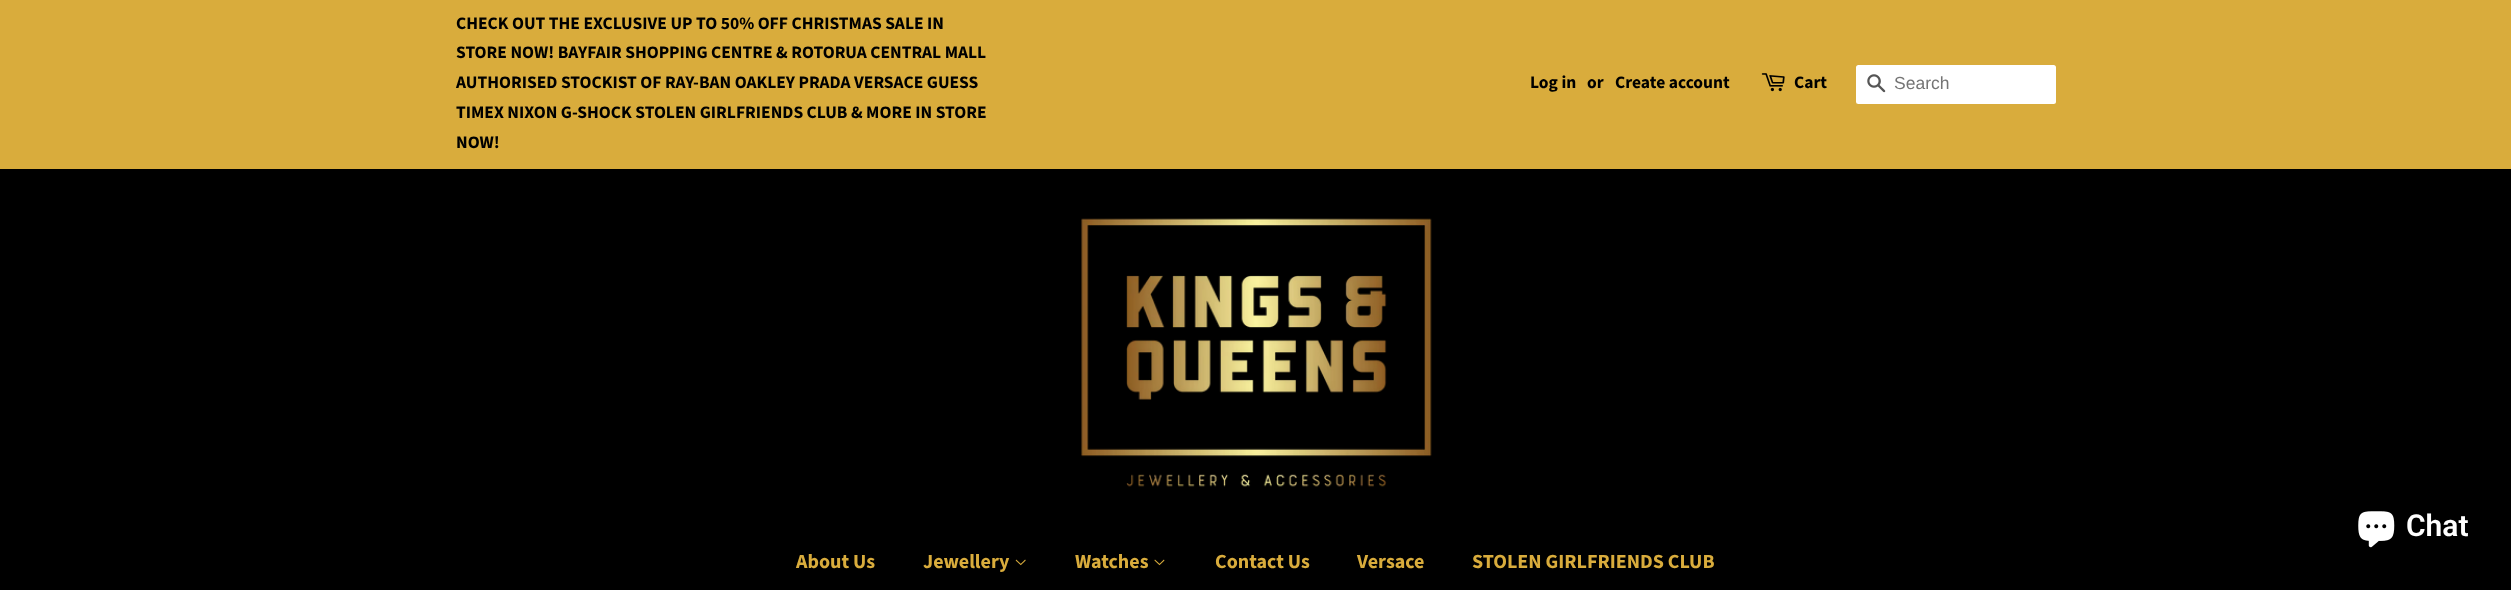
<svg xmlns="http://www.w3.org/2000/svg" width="2511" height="590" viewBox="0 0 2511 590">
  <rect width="100%" height="100%" fill="rgb(0,0,0)"/>
  <rect x="0" y="0" width="2511" height="169" fill="rgb(217,172,60)"/>
  <g font-family="Source Sans Pro" font-size="17.5" font-weight="bold" fill="rgb(0,0,0)">
    <text>
      <tspan x="456" y="29">CHECK OUT THE EXCLUSIVE UP TO 50% OFF CHRISTMAS SALE IN</tspan>
      <tspan x="456" y="58">STORE NOW! BAYFAIR SHOPPING CENTRE &amp; ROTORUA CENTRAL MALL</tspan>
      <tspan x="456" y="88">AUTHORISED STOCKIST OF RAY-BAN OAKLEY PRADA VERSACE GUESS</tspan>
      <tspan x="456" y="118">TIMEX NIXON G-SHOCK STOLEN GIRLFRIENDS CLUB &amp; MORE IN STORE</tspan>
      <tspan x="456" y="148">NOW!</tspan>
    </text>
    <text x="1530" y="88">Log in</text>
    <text x="1587" y="88">or</text>
    <text x="1615" y="88">Create account</text>
  </g>
  <image x="1761" y="73" width="24" height="19" href="pic1.png"/>
  <text x="1794" y="88" font-family="Source Sans Pro" font-size="17.5" font-weight="bold" fill="rgb(0,0,0)">Cart</text>
  <rect x="1856" y="65" width="200" height="39" rx="2.5" fill="rgb(255,255,255)"/>
  <image x="1867" y="74" width="19" height="19" href="pic2.png"/>
  <text x="1894" y="89" font-family="Arimo" font-size="17.5" fill="rgb(117,117,117)">Search</text>
  <image x="1081" y="218" width="351" height="269" href="pic3.png"/>
  <g font-family="Source Sans Pro" font-size="20" font-weight="bold" fill="rgb(217,172,60)">
    <text x="796" y="568">About Us</text>
    <text x="923" y="568">Jewellery</text>
  </g>
  <image x="1015" y="559" width="11" height="7" href="pic4.png"/>
  <text x="1075" y="568" font-family="Source Sans Pro" font-size="20" font-weight="bold" fill="rgb(217,172,60)">Watches</text>
  <image x="1154" y="559" width="11" height="7" href="pic5.png"/>
  <g font-family="Source Sans Pro" font-size="20" font-weight="bold" fill="rgb(217,172,60)">
    <text x="1215" y="568">Contact Us</text>
    <text x="1357" y="568">Versace</text>
    <text x="1472" y="568">STOLEN GIRLFRIENDS CLUB</text>
  </g>
  <image x="2358" y="511" width="37" height="37" href="pic6.png"/>
  <text x="2406" y="536" font-family="Roboto" font-size="30" font-weight="600" fill="rgb(255,255,255)">Chat</text>
</svg>
